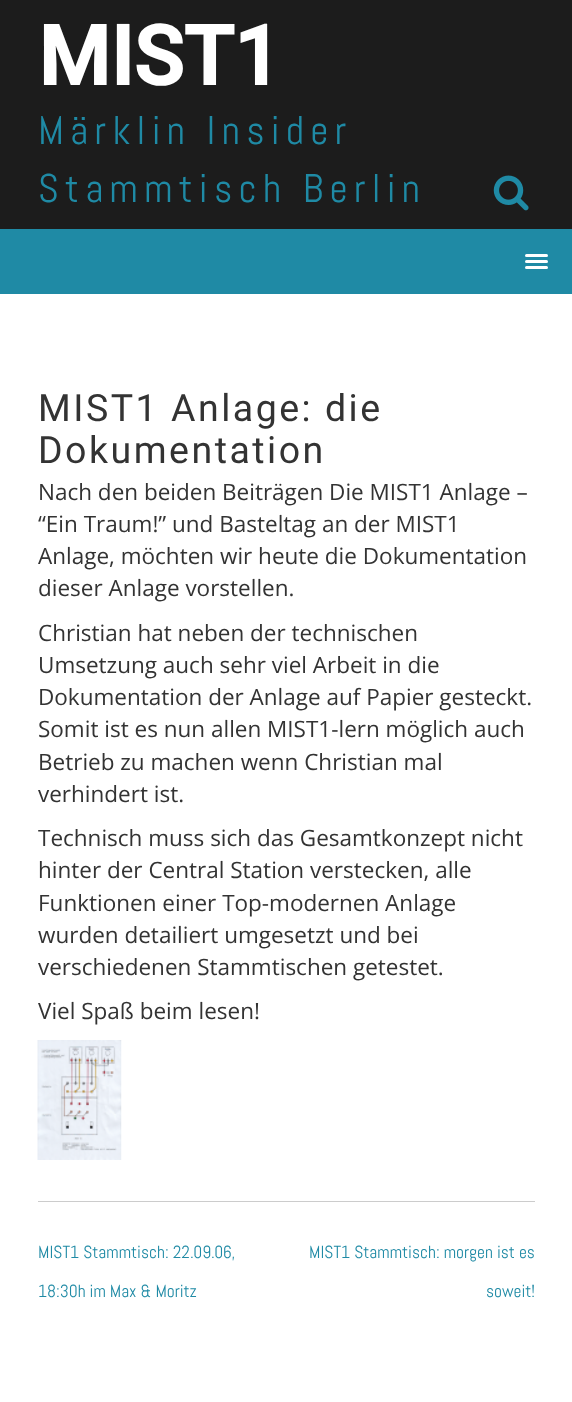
<svg xmlns="http://www.w3.org/2000/svg" width="572" height="1402" viewBox="0 0 572 1402">
  <rect width="100%" height="100%" fill="rgb(255,255,255)"/>
  <rect x="0" y="0" width="572" height="229" fill="rgb(28,28,28)"/>
  <text x="38" y="85" font-family="Roboto" font-size="82.5" font-weight="bold" fill="rgb(255,255,255)">MIST1</text>
  <g font-family="Abel" font-size="40" letter-spacing="6.25" fill="rgb(31,138,165)">
    <text>
      <tspan x="38" y="144">Märklin Insider</tspan>
      <tspan x="38" y="202">Stammtisch Berlin</tspan>
    </text>
  </g>
  <image x="493" y="175" width="36" height="36" href="pic1.png"/>
  <rect x="0" y="229" width="572" height="65" fill="rgb(31,138,165)"/>
  <rect x="525" y="254" width="23" height="3" rx="1.5" fill="rgb(255,255,255)"/>
  <rect x="525" y="260" width="23" height="3" rx="1.5" fill="rgb(255,255,255)"/>
  <rect x="525" y="266" width="23" height="3" rx="1.5" fill="rgb(255,255,255)"/>
  <g font-family="Roboto" font-size="37.5" letter-spacing="2.5" fill="rgb(51,51,51)">
    <text>
      <tspan x="38" y="421">MIST1 Anlage: die</tspan>
      <tspan x="38" y="463">Dokumentation</tspan>
    </text>
  </g>
  <g font-family="Open Sans" font-size="22.5" fill="rgb(51,51,51)">
    <text>
      <tspan x="38" y="500">Nach den beiden Beiträgen Die MIST1 Anlage –</tspan>
      <tspan x="38" y="532">“Ein Traum!” und Basteltag an der MIST1</tspan>
      <tspan x="38" y="564">Anlage, möchten wir heute die Dokumentation</tspan>
      <tspan x="38" y="596">dieser Anlage vorstellen.</tspan>
    </text>
    <text>
      <tspan x="38" y="641">Christian hat neben der technischen</tspan>
      <tspan x="38" y="673">Umsetzung auch sehr viel Arbeit in die</tspan>
      <tspan x="38" y="705">Dokumentation der Anlage auf Papier gesteckt.</tspan>
      <tspan x="38" y="737">Somit ist es nun allen MIST1-lern möglich auch</tspan>
      <tspan x="38" y="770">Betrieb zu machen wenn Christian mal</tspan>
      <tspan x="38" y="802">verhindert ist.</tspan>
      <tspan x="38" y="846">Technisch muss sich das Gesamtkonzept nicht</tspan>
      <tspan x="38" y="878">hinter der Central Station verstecken, alle</tspan>
      <tspan x="38" y="911">Funktionen einer Top-modernen Anlage</tspan>
      <tspan x="38" y="943">wurden detailiert umgesetzt und bei</tspan>
      <tspan x="38" y="975">verschiedenen Stammtischen getestet.</tspan>
      <tspan x="38" y="1019">Viel Spaß beim lesen!</tspan>
    </text>
  </g>
  <image x="37" y="1040" width="85" height="120" href="pic2.png"/>
  <rect x="38" y="1201" width="497" height="1" fill="rgb(204,204,204)"/>
  <g font-family="Abel" font-size="17.5" fill="rgb(31,138,165)">
    <text x="38" y="1258">MIST1 Stammtisch: 22.09.06,</text>
    <text x="38" y="1297">18:30h im Max &amp; Moritz</text>
    <text x="309" y="1258">MIST1 Stammtisch: morgen ist es</text>
    <text x="486" y="1297">soweit!</text>
  </g>
</svg>
